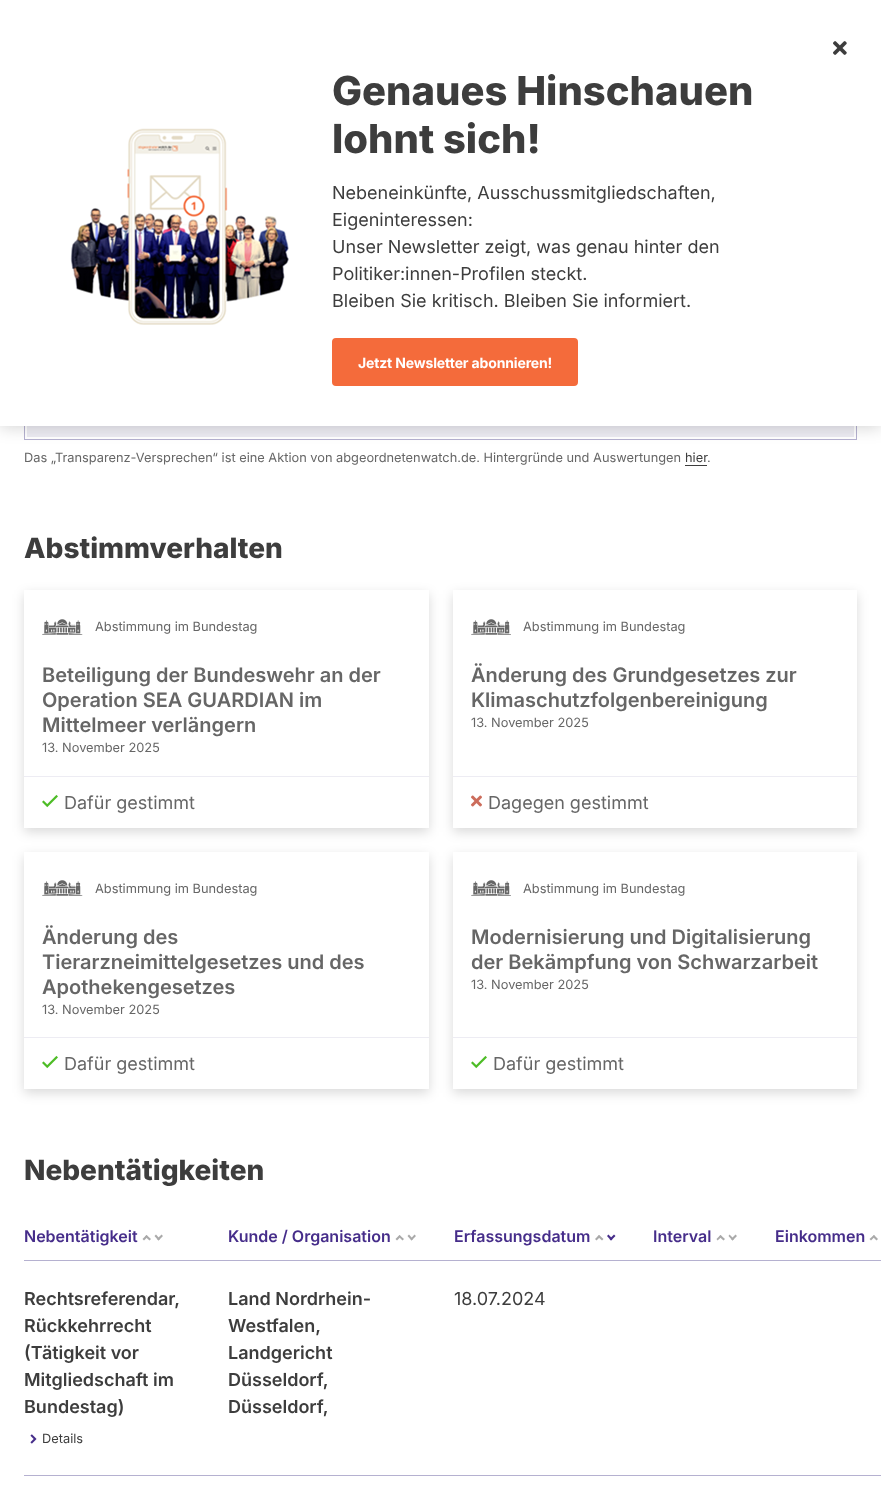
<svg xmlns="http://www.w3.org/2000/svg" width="881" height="1505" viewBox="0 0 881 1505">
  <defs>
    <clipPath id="clip1"><path d="M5 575H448V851H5ZM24 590H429V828H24Z" clip-rule="evenodd"/></clipPath>
    <clipPath id="clip2"><path d="M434 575H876V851H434ZM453 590H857V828H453Z" clip-rule="evenodd"/></clipPath>
    <clipPath id="clip3"><path d="M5 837H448V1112H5ZM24 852H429V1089H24Z" clip-rule="evenodd"/></clipPath>
    <clipPath id="clip4"><path d="M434 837H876V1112H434ZM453 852H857V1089H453Z" clip-rule="evenodd"/></clipPath>
  </defs>
  <rect width="100%" height="100%" fill="rgb(255,255,255)"/>
  <rect x="24.5" y="-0.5" width="832" height="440" fill="none" stroke="rgb(181,177,208)"/>
  <rect x="27" y="426" width="827" height="11" fill="rgb(237,236,243)"/>
  <rect x="0" y="2" width="881" height="426" fill="rgba(0,0,0,0.16)" filter="blur(8px)"/>
  <rect x="0" y="0" width="881" height="426" fill="rgb(255,255,255)"/>
  <image x="833" y="41" width="14" height="14" href="pic1.png"/>
  <image x="70" y="128" width="219" height="197" href="pic2.png"/>
  <g font-family="Inter" font-size="40" font-weight="800" fill="rgb(61,61,61)">
    <text>
      <tspan x="332" y="105">Genaues Hinschauen</tspan>
      <tspan x="332" y="153">lohnt sich!</tspan>
    </text>
  </g>
  <g font-family="Inter" font-size="18" fill="rgb(61,61,61)">
    <text>
      <tspan x="332" y="199">Nebeneinkünfte, Ausschussmitgliedschaften,</tspan>
      <tspan x="332" y="226">Eigeninteressen:</tspan>
      <tspan x="332" y="253">Unser Newsletter zeigt, was genau hinter den</tspan>
      <tspan x="332" y="280">Politiker:innen-Profilen steckt.</tspan>
      <tspan x="332" y="307">Bleiben Sie kritisch. Bleiben Sie informiert.</tspan>
    </text>
  </g>
  <rect x="333" y="339" width="244" height="46" rx="3" fill="rgb(244,107,59)" stroke="rgb(244,107,59)" stroke-width="2"/>
  <text x="358" y="368" font-family="Inter" font-size="14" font-weight="bold" letter-spacing="-0.15" fill="rgb(255,255,255)">Jetzt Newsletter abonnieren!</text>
  <text x="24" y="462" font-family="Inter" font-size="12.8" fill="rgb(102,102,102)">Das „Transparenz-Versprechen“ ist eine Aktion von abgeordnetenwatch.de. Hintergründe und Auswertungen</text>
  <text x="685" y="462" font-family="Inter" font-size="12.8" fill="rgb(61,61,61)">hier</text>
  <rect x="685" y="465" width="22" height="1" fill="rgb(61,61,61)"/>
  <text x="707" y="462" font-family="Inter" font-size="12.8" fill="rgb(102,102,102)">.</text>
  <text x="24" y="558" font-family="Inter" font-size="28" font-weight="800" fill="rgb(61,61,61)">Abstimmverhalten</text>
  <g clip-path="url(#clip1)">
    <rect x="24" y="594" width="405" height="238" fill="rgba(0,0,0,0.15)" filter="blur(6px)"/>
  </g>
  <image x="42" y="619" width="41" height="16" href="pic3.png"/>
  <text x="95" y="631" font-family="Inter" font-size="12.8" fill="rgb(102,102,102)">Abstimmung im Bundestag</text>
  <g font-family="Inter" font-size="20" font-weight="600" fill="rgb(102,102,102)">
    <text>
      <tspan x="42" y="682">Beteiligung der Bundeswehr an der</tspan>
      <tspan x="42" y="707">Operation SEA GUARDIAN im</tspan>
      <tspan x="42" y="732">Mittelmeer verlängern</tspan>
    </text>
  </g>
  <text x="42" y="752" font-family="Inter" font-size="12.8" fill="rgb(102,102,102)">13. November 2025</text>
  <rect x="24" y="776" width="405" height="1" fill="rgb(237,236,243)"/>
  <image x="42" y="794" width="16" height="14" href="pic4.png"/>
  <text x="64" y="809" font-family="Inter" font-size="18" fill="rgb(102,102,102)">Dafür gestimmt</text>
  <g clip-path="url(#clip2)">
    <rect x="453" y="594" width="404" height="238" fill="rgba(0,0,0,0.15)" filter="blur(6px)"/>
  </g>
  <image x="471" y="619" width="40" height="16" href="pic5.png"/>
  <text x="523" y="631" font-family="Inter" font-size="12.8" fill="rgb(102,102,102)">Abstimmung im Bundestag</text>
  <g font-family="Inter" font-size="20" font-weight="600" fill="rgb(102,102,102)">
    <text>
      <tspan x="471" y="682">Änderung des Grundgesetzes zur</tspan>
      <tspan x="471" y="707">Klimaschutzfolgenbereinigung</tspan>
    </text>
  </g>
  <text x="471" y="727" font-family="Inter" font-size="12.8" fill="rgb(102,102,102)">13. November 2025</text>
  <rect x="453" y="776" width="404" height="1" fill="rgb(237,236,243)"/>
  <image x="471" y="795" width="11" height="12" href="pic6.png"/>
  <text x="488" y="809" font-family="Inter" font-size="18" fill="rgb(102,102,102)">Dagegen gestimmt</text>
  <g clip-path="url(#clip3)">
    <rect x="24" y="856" width="405" height="237" fill="rgba(0,0,0,0.15)" filter="blur(6px)"/>
  </g>
  <image x="42" y="880" width="41" height="16" href="pic3.png"/>
  <text x="95" y="893" font-family="Inter" font-size="12.8" fill="rgb(102,102,102)">Abstimmung im Bundestag</text>
  <g font-family="Inter" font-size="20" font-weight="600" fill="rgb(102,102,102)">
    <text>
      <tspan x="42" y="944">Änderung des</tspan>
      <tspan x="42" y="969">Tierarzneimittelgesetzes und des</tspan>
      <tspan x="42" y="994">Apothekengesetzes</tspan>
    </text>
  </g>
  <text x="42" y="1014" font-family="Inter" font-size="12.8" fill="rgb(102,102,102)">13. November 2025</text>
  <rect x="24" y="1037" width="405" height="1" fill="rgb(237,236,243)"/>
  <image x="42" y="1055" width="16" height="14" href="pic4.png"/>
  <text x="64" y="1070" font-family="Inter" font-size="18" fill="rgb(102,102,102)">Dafür gestimmt</text>
  <g clip-path="url(#clip4)">
    <rect x="453" y="856" width="404" height="237" fill="rgba(0,0,0,0.15)" filter="blur(6px)"/>
  </g>
  <image x="471" y="880" width="40" height="16" href="pic5.png"/>
  <text x="523" y="893" font-family="Inter" font-size="12.8" fill="rgb(102,102,102)">Abstimmung im Bundestag</text>
  <g font-family="Inter" font-size="20" font-weight="600" fill="rgb(102,102,102)">
    <text>
      <tspan x="471" y="944">Modernisierung und Digitalisierung</tspan>
      <tspan x="471" y="969">der Bekämpfung von Schwarzarbeit</tspan>
    </text>
  </g>
  <text x="471" y="989" font-family="Inter" font-size="12.8" fill="rgb(102,102,102)">13. November 2025</text>
  <rect x="453" y="1037" width="404" height="1" fill="rgb(237,236,243)"/>
  <image x="471" y="1055" width="16" height="14" href="pic4.png"/>
  <text x="493" y="1070" font-family="Inter" font-size="18" fill="rgb(102,102,102)">Dafür gestimmt</text>
  <text x="24" y="1180" font-family="Inter" font-size="28" font-weight="800" fill="rgb(61,61,61)">Nebentätigkeiten</text>
  <rect x="24" y="1260" width="857" height="1" fill="rgb(181,177,208)"/>
  <text x="24" y="1242" font-family="Inter" font-size="16" font-weight="600" fill="rgb(70,45,138)">Nebentätigkeit</text>
  <path d="M144 1240.5L142.5 1239L146.5 1235L148 1236.5Z" fill="rgb(170,170,170)"/>
  <path d="M149.5 1240.5L145 1236.5L146.5 1235L151 1239ZM161.5 1234.5L163 1236L158.5 1240.5L157 1239Z" fill="rgb(170,170,170)"/>
  <path d="M156 1234.5L160 1239L158.5 1240.5L154.5 1236Z" fill="rgb(170,170,170)"/>
  <text x="228" y="1242" font-family="Inter" font-size="16" font-weight="600" fill="rgb(70,45,138)">Kunde / Organisation</text>
  <path d="M397 1240.5L395.5 1239L399.5 1235L401 1236.5Z" fill="rgb(170,170,170)"/>
  <path d="M402.5 1240.5L398.5 1236.5L399.5 1235L404 1239ZM414.5 1234.5L416 1236L411.5 1240.5L410.5 1239Z" fill="rgb(170,170,170)"/>
  <path d="M409 1234.5L413 1239L411.5 1240.5L407.5 1236Z" fill="rgb(170,170,170)"/>
  <text x="454" y="1242" font-family="Inter" font-size="16" font-weight="600" fill="rgb(70,45,138)">Erfassungsdatum</text>
  <path d="M596.5 1240.5L595 1239L599 1235L600.5 1236.5Z" fill="rgb(170,170,170)"/>
  <path d="M602 1240.5L597.5 1236.5L599 1235L603.5 1239Z" fill="rgb(170,170,170)"/>
  <path d="M614 1234.5L615.5 1236L611 1240.5L609.5 1239Z" fill="rgb(70,45,138)"/>
  <path d="M608.5 1234.5L612.5 1239L611 1240.5L607 1236Z" fill="rgb(70,45,138)"/>
  <text x="653" y="1242" font-family="Inter" font-size="16" font-weight="600" fill="rgb(70,45,138)">Interval</text>
  <path d="M717.5 1240.5L716.5 1239L720.5 1235L722 1236.5Z" fill="rgb(170,170,170)"/>
  <path d="M723.5 1240.5L719 1236.5L720.5 1235L725 1239ZM735.5 1234.5L737 1236L732.5 1240.5L731 1239Z" fill="rgb(170,170,170)"/>
  <path d="M729.5 1234.5L734 1239L732.5 1240.5L728.5 1236Z" fill="rgb(170,170,170)"/>
  <text x="775" y="1242" font-family="Inter" font-size="16" font-weight="600" fill="rgb(70,45,138)">Einkommen</text>
  <path d="M871 1240.5L869.5 1239L874 1235L875 1236.5Z" fill="rgb(170,170,170)"/>
  <path d="M876.5 1240.5L872.5 1236.5L874 1235L878 1239Z" fill="rgb(170,170,170)"/>
  <rect x="24" y="1475" width="857" height="1" fill="rgb(181,177,208)"/>
  <g font-family="Inter" font-size="18" font-weight="600" fill="rgb(61,61,61)">
    <text>
      <tspan x="24" y="1305">Rechtsreferendar,</tspan>
      <tspan x="24" y="1332">Rückkehrrecht</tspan>
      <tspan x="24" y="1359">(Tätigkeit vor</tspan>
      <tspan x="24" y="1386">Mitgliedschaft im</tspan>
      <tspan x="24" y="1413">Bundestag)</tspan>
    </text>
  </g>
  <image x="30" y="1434" width="7" height="10" href="pic7.png"/>
  <text x="42" y="1443" font-family="Inter" font-size="12.8" fill="rgb(61,61,61)">Details</text>
  <g font-family="Inter" font-size="18" font-weight="600" fill="rgb(61,61,61)">
    <text>
      <tspan x="228" y="1305">Land Nordrhein-</tspan>
      <tspan x="228" y="1332">Westfalen,</tspan>
      <tspan x="228" y="1359">Landgericht</tspan>
      <tspan x="228" y="1386">Düsseldorf,</tspan>
      <tspan x="228" y="1413">Düsseldorf,</tspan>
    </text>
  </g>
  <text x="454" y="1305" font-family="Inter" font-size="18" fill="rgb(61,61,61)">18.07.2024</text>
</svg>
